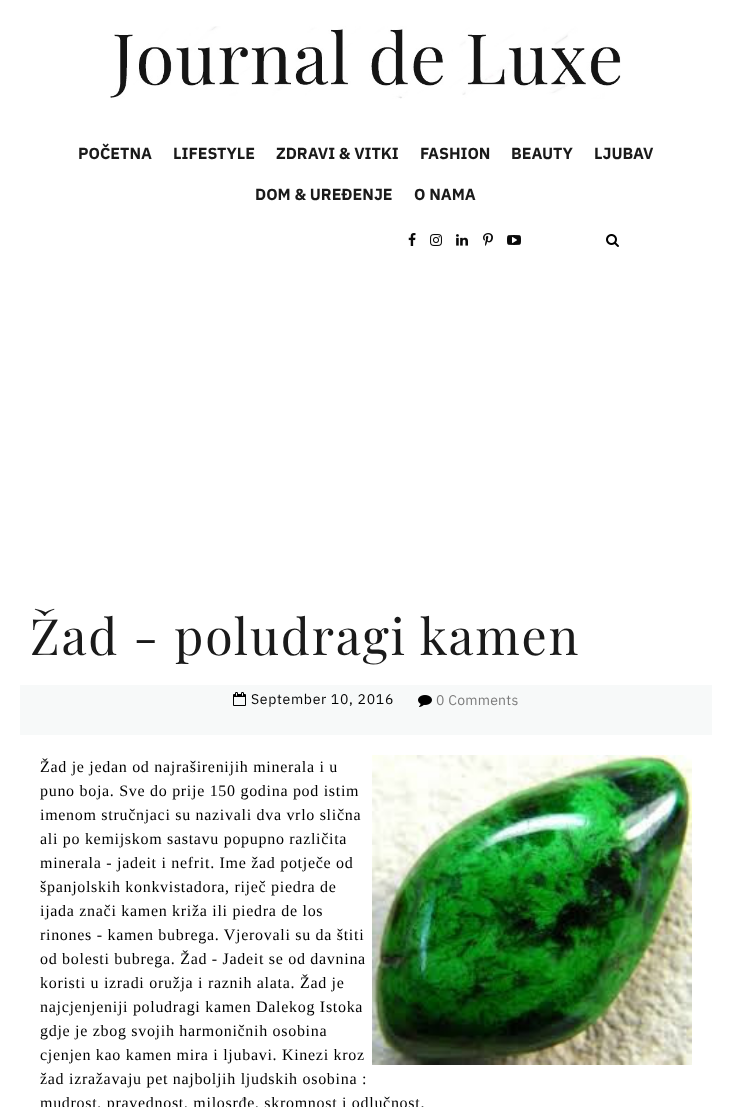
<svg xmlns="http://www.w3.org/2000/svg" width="732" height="1107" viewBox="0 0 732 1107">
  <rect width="100%" height="100%" fill="rgb(255,255,255)"/>
  <image x="110" y="26" width="511" height="73" href="pic1.png"/>
  <g font-family="IBM Plex Sans" font-size="16" font-weight="bold" fill="rgb(26,26,26)">
    <text x="78" y="159">POČETNA</text>
    <text x="173" y="159">LIFESTYLE</text>
    <text x="276" y="159">ZDRAVI &amp; VITKI</text>
    <text x="420" y="159">FASHION</text>
    <text x="511" y="159">BEAUTY</text>
    <text x="594" y="159">LJUBAV</text>
    <text x="255" y="200">DOM &amp; UREĐENJE</text>
    <text x="414" y="200">O NAMA</text>
  </g>
  <image x="408" y="233" width="8" height="13" href="pic2.png"/>
  <image x="430" y="234" width="12" height="12" href="pic3.png"/>
  <image x="456" y="234" width="12" height="12" href="pic4.png"/>
  <image x="483" y="233" width="10" height="13" href="pic5.png"/>
  <image x="507" y="235" width="14" height="10" href="pic6.png"/>
  <image x="606" y="234" width="13" height="13" href="pic7.png"/>
  <text x="30" y="655" font-family="Playfair Display" font-size="50" letter-spacing="1.8" fill="rgb(26,26,26)">Žad - poludragi kamen</text>
  <rect x="20" y="685" width="692" height="50" fill="rgb(247,249,249)"/>
  <image x="233" y="692" width="13" height="14" href="pic8.png"/>
  <text x="251" y="704" font-family="IBM Plex Sans" font-size="14" letter-spacing="0.7" fill="rgb(0,0,0)">September 10, 2016</text>
  <image x="418" y="695" width="14" height="12" href="pic9.png"/>
  <text x="436" y="705" font-family="IBM Plex Sans" font-size="14" letter-spacing="0.25" fill="rgb(123,123,123)">0 Comments</text>
  <g font-family="Liberation Serif" font-size="16" letter-spacing="0.7" fill="rgb(0,0,0)">
    <text>
      <tspan x="40" y="772">Žad je jedan od najraširenijih minerala i u</tspan>
      <tspan x="40" y="796">puno boja. Sve do prije 150 godina pod istim</tspan>
      <tspan x="40" y="820">imenom stručnjaci su nazivali dva vrlo slična</tspan>
      <tspan x="40" y="844">ali po kemijskom sastavu popupno različita</tspan>
      <tspan x="40" y="868">minerala - jadeit i nefrit. Ime žad potječe od</tspan>
      <tspan x="40" y="892">španjolskih konkvistadora, riječ piedra de</tspan>
      <tspan x="40" y="916">ijada znači kamen križa ili piedra de los</tspan>
      <tspan x="40" y="940">rinones - kamen bubrega. Vjerovali su da štiti</tspan>
      <tspan x="40" y="964">od bolesti bubrega. Žad - Jadeit se od davnina</tspan>
      <tspan x="40" y="988">koristi u izradi oružja i raznih alata. Žad je</tspan>
      <tspan x="40" y="1012">najcjenjeniji poludragi kamen Dalekog Istoka</tspan>
      <tspan x="40" y="1036">gdje je zbog svojih harmoničnih osobina</tspan>
      <tspan x="40" y="1060">cjenjen kao kamen mira i ljubavi. Kinezi kroz</tspan>
      <tspan x="40" y="1084">žad izražavaju pet najboljih ljudskih osobina :</tspan>
      <tspan x="40" y="1108">mudrost, pravednost, milosrđe, skromnost i odlučnost.</tspan>
    </text>
  </g>
  <image x="372" y="755" width="320" height="310" href="pic10.png"/>
</svg>
